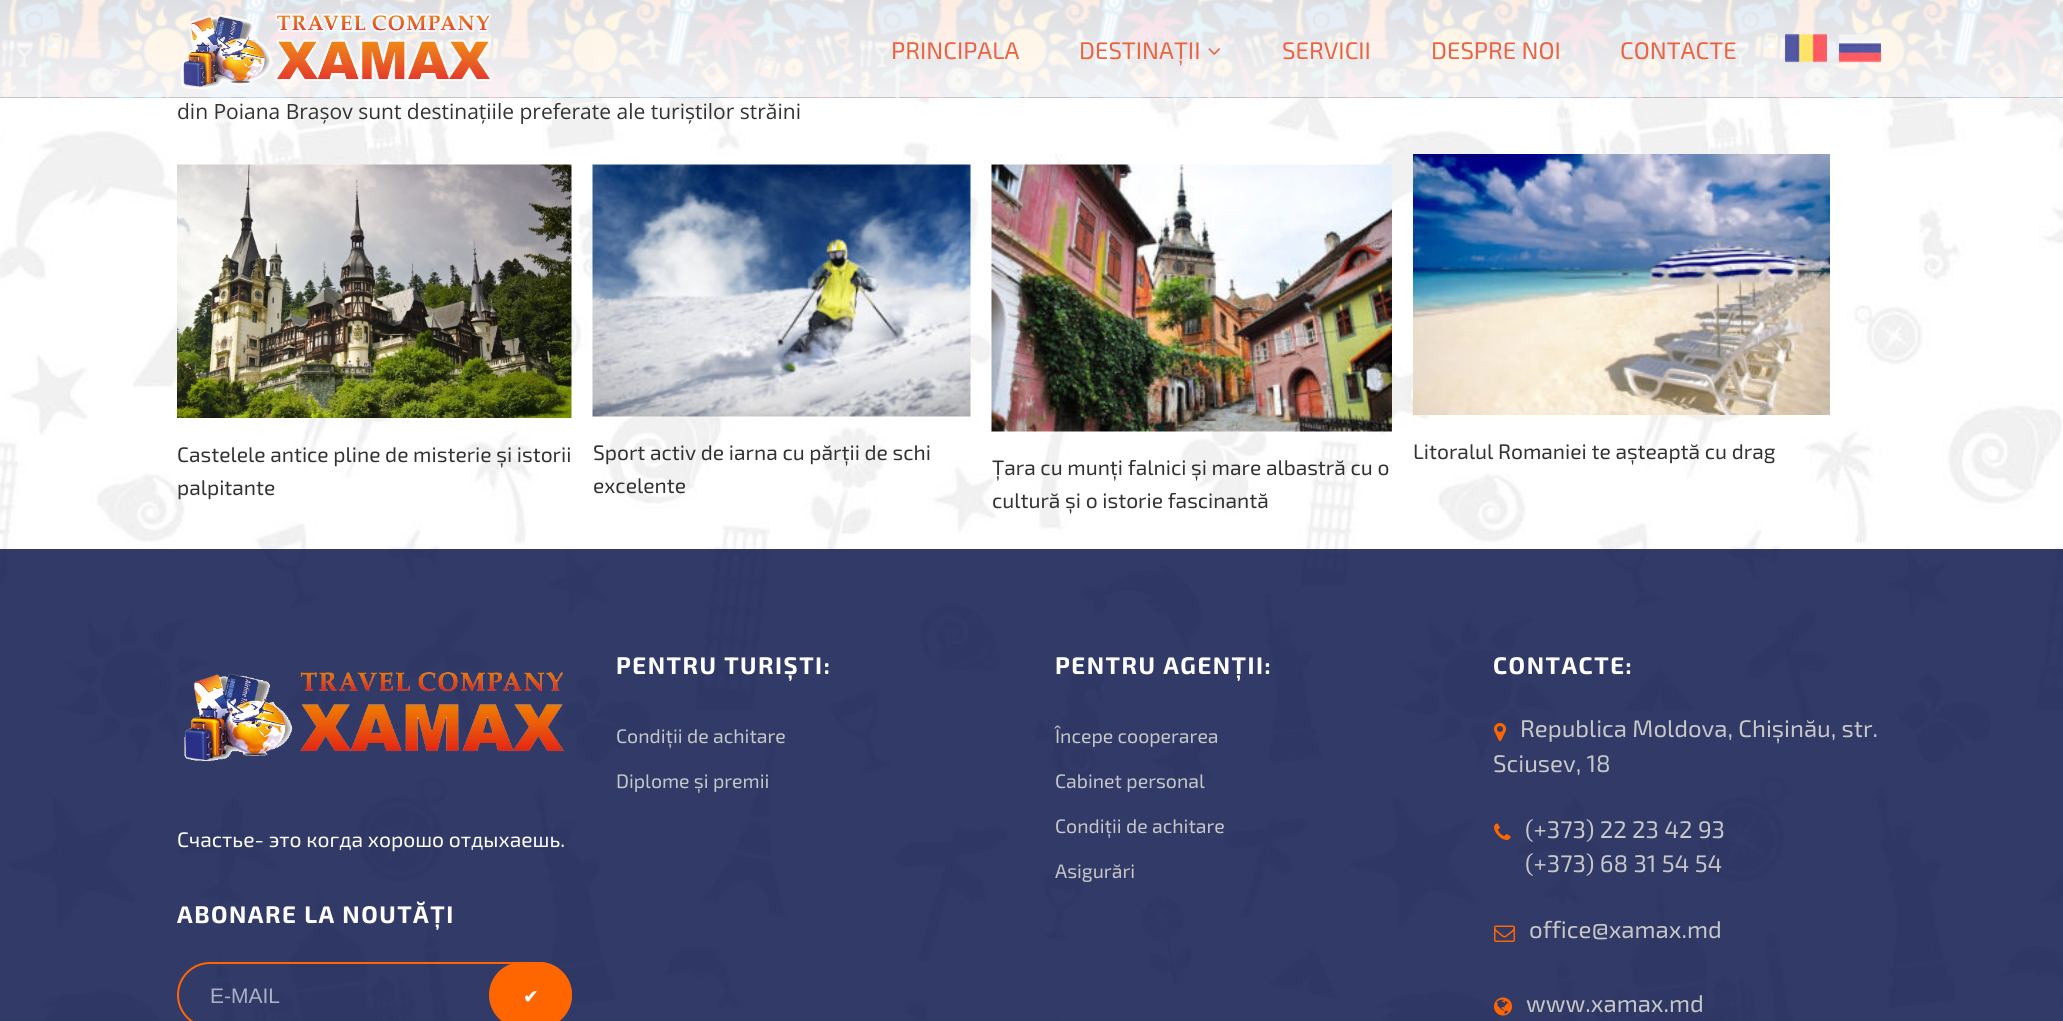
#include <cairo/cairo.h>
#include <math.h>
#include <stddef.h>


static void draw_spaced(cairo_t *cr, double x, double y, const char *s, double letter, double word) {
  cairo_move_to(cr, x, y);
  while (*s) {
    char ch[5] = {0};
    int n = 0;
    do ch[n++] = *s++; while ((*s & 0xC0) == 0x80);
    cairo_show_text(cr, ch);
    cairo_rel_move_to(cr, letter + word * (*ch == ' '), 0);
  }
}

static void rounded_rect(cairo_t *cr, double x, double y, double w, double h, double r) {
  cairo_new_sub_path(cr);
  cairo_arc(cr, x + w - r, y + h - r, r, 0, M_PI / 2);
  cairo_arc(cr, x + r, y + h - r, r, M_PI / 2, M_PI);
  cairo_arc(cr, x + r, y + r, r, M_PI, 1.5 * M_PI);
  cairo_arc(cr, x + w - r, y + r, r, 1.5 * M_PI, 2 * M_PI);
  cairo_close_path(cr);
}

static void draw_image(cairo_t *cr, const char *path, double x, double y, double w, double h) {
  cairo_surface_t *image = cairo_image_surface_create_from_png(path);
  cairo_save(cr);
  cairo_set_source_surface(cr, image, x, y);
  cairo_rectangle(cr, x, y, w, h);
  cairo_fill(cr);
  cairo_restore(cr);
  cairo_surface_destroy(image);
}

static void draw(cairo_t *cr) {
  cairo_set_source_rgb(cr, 1, 1, 1);
  cairo_paint(cr);
  draw_image(cr, "images/1.png", 0, 0, 2063, 1021);
  draw_image(cr, "images/2.png", 0, 0, 2063, 98);
  draw_image(cr, "images/3.png", 180, 13, 312, 77);
  draw_image(cr, "images/4.png", 1208, 48, 12, 7);
  draw_image(cr, "images/5.png", 1785, 33, 42, 30);
  draw_image(cr, "images/6.png", 1839, 34, 42, 29);
  draw_image(cr, "images/7.png", 177, 164, 395, 254);
  draw_image(cr, "images/8.png", 592, 164, 379, 253);
  draw_image(cr, "images/9.png", 991, 164, 401, 268);
  draw_image(cr, "images/10.png", 1413, 154, 417, 261);
  cairo_set_source_rgba(cr, 3 / 255.0, 13 / 255.0, 70 / 255.0, 0.81);
  cairo_rectangle(cr, 0, 549, 2063, 472);
  cairo_fill(cr);
  draw_image(cr, "images/11.png", 184, 672, 380, 90);
  rounded_rect(cr, 178, 963, 393, 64, 32);
  cairo_set_source_rgb(cr, 1, 101 / 255.0, 0);
  cairo_stroke(cr);
  cairo_set_source_rgb(cr, 1, 102 / 255.0, 0);
  rounded_rect(cr, 490.5, 963.5, 80, 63, 31.5);
  cairo_fill_preserve(cr);
  cairo_set_line_width(cr, 3);
  cairo_stroke(cr);
  draw_image(cr, "images/12.png", 1494, 723, 12, 18);
  draw_image(cr, "images/13.png", 1494, 823, 17, 17);
  draw_image(cr, "images/14.png", 1494, 925, 21, 17);
  draw_image(cr, "images/15.png", 1494, 997, 18, 19);
  cairo_select_font_face(cr, "Exo 2", CAIRO_FONT_SLANT_NORMAL, CAIRO_FONT_WEIGHT_NORMAL);
  cairo_set_font_size(cr, 24);
  cairo_set_source_rgb(cr, 235 / 255.0, 100 / 255.0, 66 / 255.0);
  cairo_move_to(cr, 891, 59);
  cairo_show_text(cr, "PRINCIPALA");
  cairo_move_to(cr, 1079, 59);
  cairo_show_text(cr, "DESTINAȚII");
  cairo_move_to(cr, 1282, 59);
  cairo_show_text(cr, "SERVICII");
  cairo_move_to(cr, 1431, 59);
  cairo_show_text(cr, "DESPRE NOI");
  cairo_move_to(cr, 1620, 59);
  cairo_show_text(cr, "CONTACTE");
  cairo_select_font_face(cr, "Open Sans", CAIRO_FONT_SLANT_NORMAL, CAIRO_FONT_WEIGHT_NORMAL);
  cairo_set_font_size(cr, 21);
  cairo_set_source_rgb(cr, 51 / 255.0, 51 / 255.0, 51 / 255.0);
  cairo_move_to(cr, 177, 119);
  cairo_show_text(cr, "din Poiana Brașov sunt destinațiile preferate ale turiștilor străini");
  cairo_select_font_face(cr, "Exo 2", CAIRO_FONT_SLANT_NORMAL, CAIRO_FONT_WEIGHT_NORMAL);
  cairo_move_to(cr, 177, 462);
  cairo_show_text(cr, "Castelele antice pline de misterie și istorii");
  cairo_move_to(cr, 177, 495);
  cairo_show_text(cr, "palpitante");
  cairo_move_to(cr, 593, 460);
  cairo_show_text(cr, "Sport activ de iarna cu părții de schi");
  cairo_move_to(cr, 593, 493);
  cairo_show_text(cr, "excelente");
  cairo_move_to(cr, 992, 475);
  cairo_show_text(cr, "Țara cu munți falnici și mare albastră cu o");
  cairo_move_to(cr, 992, 508);
  cairo_show_text(cr, "cultură și o istorie fascinantă");
  cairo_move_to(cr, 1413, 459);
  cairo_show_text(cr, "Litoralul Romaniei te așteaptă cu drag");
  cairo_set_source_rgb(cr, 1, 1, 1);
  cairo_move_to(cr, 177, 847);
  cairo_show_text(cr, "Счастье- это когда хорошо отдыхаешь.");
  cairo_select_font_face(cr, "Exo 2", CAIRO_FONT_SLANT_NORMAL, CAIRO_FONT_WEIGHT_BOLD);
  cairo_set_font_size(cr, 24);
  draw_spaced(cr, 177, 923, "ABONARE LA NOUTĂȚI", 1.5, 0);
  cairo_select_font_face(cr, "Liberation Sans", CAIRO_FONT_SLANT_NORMAL, CAIRO_FONT_WEIGHT_NORMAL);
  cairo_set_font_size(cr, 21);
  cairo_set_source_rgb(cr, 173 / 255.0, 176 / 255.0, 195 / 255.0);
  cairo_move_to(cr, 210, 1003);
  cairo_show_text(cr, "E-MAIL");
  cairo_select_font_face(cr, "DejaVu Sans", CAIRO_FONT_SLANT_NORMAL, CAIRO_FONT_WEIGHT_BOLD);
  cairo_set_font_size(cr, 18);
  cairo_set_source_rgb(cr, 1, 1, 1);
  cairo_move_to(cr, 523, 1003);
  cairo_show_text(cr, "✔");
  cairo_select_font_face(cr, "Exo 2", CAIRO_FONT_SLANT_NORMAL, CAIRO_FONT_WEIGHT_BOLD);
  cairo_set_font_size(cr, 24);
  draw_spaced(cr, 616, 674, "PENTRU TURIȘTI:", 1.5, 0);
  cairo_select_font_face(cr, "Exo 2", CAIRO_FONT_SLANT_NORMAL, CAIRO_FONT_WEIGHT_NORMAL);
  cairo_set_font_size(cr, 19.5);
  cairo_set_source_rgb(cr, 199 / 255.0, 199 / 255.0, 199 / 255.0);
  cairo_move_to(cr, 616, 743);
  cairo_show_text(cr, "Condiții de achitare");
  cairo_move_to(cr, 616, 788);
  cairo_show_text(cr, "Diplome și premii");
  cairo_select_font_face(cr, "Exo 2", CAIRO_FONT_SLANT_NORMAL, CAIRO_FONT_WEIGHT_BOLD);
  cairo_set_font_size(cr, 24);
  cairo_set_source_rgb(cr, 1, 1, 1);
  draw_spaced(cr, 1055, 674, "PENTRU AGENȚII:", 1.5, 0);
  cairo_select_font_face(cr, "Exo 2", CAIRO_FONT_SLANT_NORMAL, CAIRO_FONT_WEIGHT_NORMAL);
  cairo_set_font_size(cr, 19.5);
  cairo_set_source_rgb(cr, 199 / 255.0, 199 / 255.0, 199 / 255.0);
  cairo_move_to(cr, 1055, 743);
  cairo_show_text(cr, "Începe cooperarea");
  cairo_move_to(cr, 1055, 788);
  cairo_show_text(cr, "Cabinet personal");
  cairo_move_to(cr, 1055, 833);
  cairo_show_text(cr, "Condiții de achitare");
  cairo_move_to(cr, 1055, 878);
  cairo_show_text(cr, "Asigurări");
  cairo_select_font_face(cr, "Exo 2", CAIRO_FONT_SLANT_NORMAL, CAIRO_FONT_WEIGHT_BOLD);
  cairo_set_font_size(cr, 24);
  cairo_set_source_rgb(cr, 1, 1, 1);
  draw_spaced(cr, 1493, 674, "CONTACTE:", 1.5, 0);
  cairo_select_font_face(cr, "Exo 2", CAIRO_FONT_SLANT_NORMAL, CAIRO_FONT_WEIGHT_NORMAL);
  cairo_set_source_rgb(cr, 199 / 255.0, 199 / 255.0, 199 / 255.0);
  cairo_move_to(cr, 1520, 737);
  cairo_show_text(cr, "Republica Moldova, Chișinău, str.");
  cairo_move_to(cr, 1493, 772);
  cairo_show_text(cr, "Sciusev, 18");
  cairo_move_to(cr, 1525, 838);
  cairo_show_text(cr, "(+373) 22 23 42 93");
  cairo_move_to(cr, 1525, 872);
  cairo_show_text(cr, "(+373) 68 31 54 54");
  cairo_move_to(cr, 1529, 938);
  cairo_show_text(cr, "office@xamax.md");
  cairo_move_to(cr, 1526, 1012);
  cairo_show_text(cr, "www.xamax.md");
}

int main(void) {
  cairo_surface_t *surface = cairo_image_surface_create(CAIRO_FORMAT_RGB24, 2063, 1021);
  cairo_t *cr = cairo_create(surface);
  cairo_font_options_t *options = cairo_font_options_create();
  cairo_font_options_set_hint_metrics(options, CAIRO_HINT_METRICS_OFF);
  cairo_font_options_set_hint_style(options, CAIRO_HINT_STYLE_NONE);
  cairo_set_font_options(cr, options);
  cairo_set_miter_limit(cr, 4);
  draw(cr);
  cairo_surface_write_to_png(surface, "out.png");
  cairo_font_options_destroy(options);
  cairo_destroy(cr);
  cairo_surface_destroy(surface);
  return 0;
}
